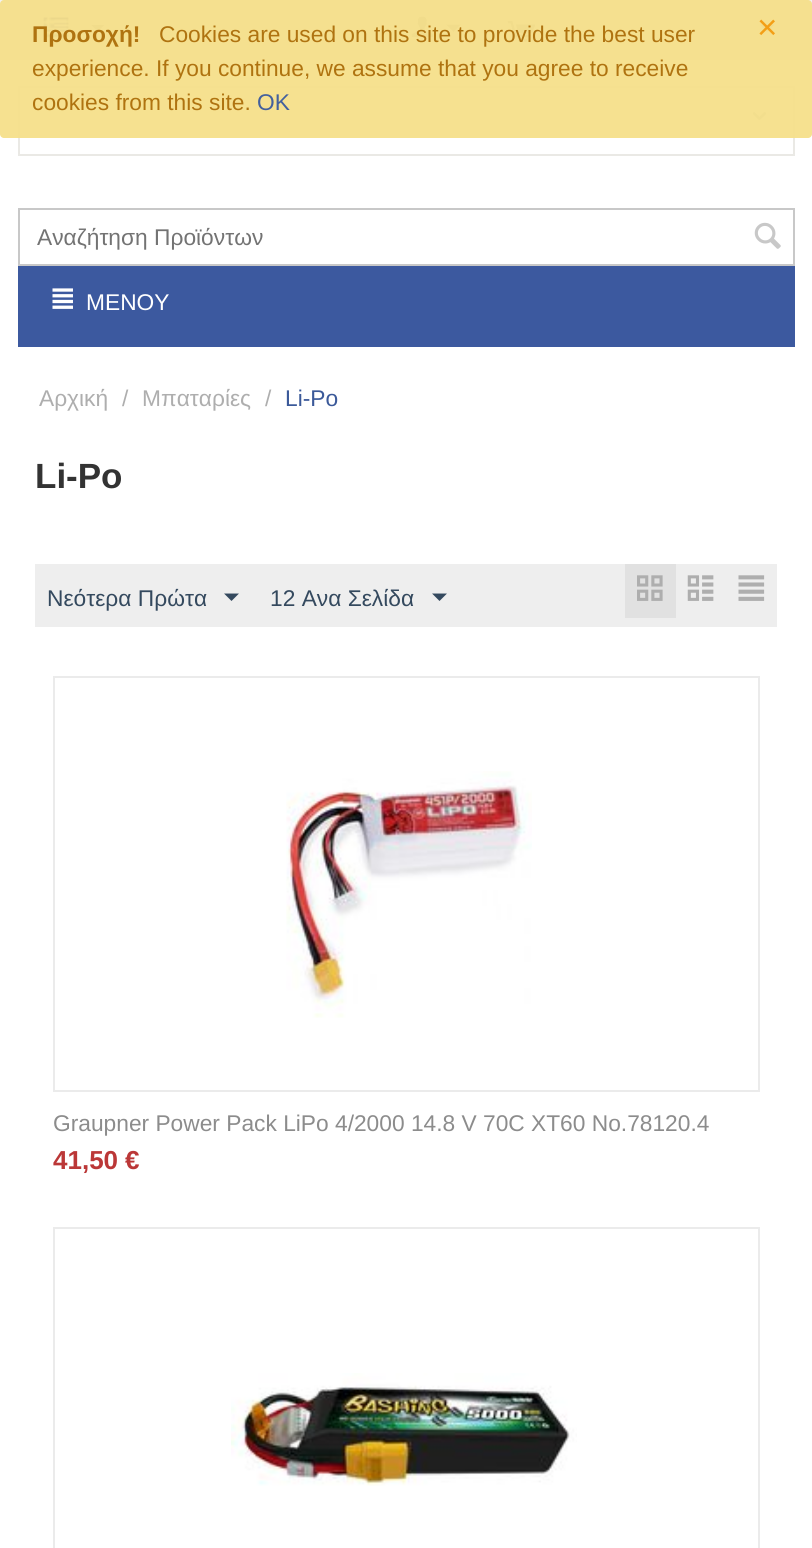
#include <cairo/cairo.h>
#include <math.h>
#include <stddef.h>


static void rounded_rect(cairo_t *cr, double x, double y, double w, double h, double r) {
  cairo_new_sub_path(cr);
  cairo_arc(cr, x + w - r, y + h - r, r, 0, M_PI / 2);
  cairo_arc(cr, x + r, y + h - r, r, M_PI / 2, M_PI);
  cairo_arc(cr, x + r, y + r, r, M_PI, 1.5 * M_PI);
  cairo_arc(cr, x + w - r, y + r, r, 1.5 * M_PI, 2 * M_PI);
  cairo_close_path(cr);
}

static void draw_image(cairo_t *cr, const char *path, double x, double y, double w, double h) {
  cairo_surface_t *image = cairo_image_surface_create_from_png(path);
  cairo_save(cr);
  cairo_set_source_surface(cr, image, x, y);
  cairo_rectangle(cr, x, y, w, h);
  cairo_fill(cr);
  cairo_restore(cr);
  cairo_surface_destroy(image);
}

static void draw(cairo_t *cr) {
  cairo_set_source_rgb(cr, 1, 1, 1);
  cairo_paint(cr);
  cairo_set_source_rgb(cr, 242 / 255.0, 242 / 255.0, 242 / 255.0);
  cairo_rectangle(cr, 0, 0, 812, 58);
  cairo_fill(cr);
  cairo_set_source_rgb(cr, 225 / 255.0, 225 / 255.0, 225 / 255.0);
  cairo_rectangle(cr, 0, 58, 812, 2);
  cairo_fill(cr);
  draw_image(cr, "images/1.png", 42, 17, 28, 23);
  cairo_set_source_rgb(cr, 136 / 255.0, 136 / 255.0, 136 / 255.0);
  cairo_new_path(cr);
  cairo_move_to(cr, 97.5, 31.5);
  cairo_line_to(cr, 91, 25);
  cairo_line_to(cr, 104.5, 25);
  cairo_close_path(cr);
  cairo_fill(cr);
  draw_image(cr, "images/2.png", 411, 16, 22, 22);
  cairo_new_path(cr);
  cairo_move_to(cr, 453.5, 32);
  cairo_line_to(cr, 446, 24.5);
  cairo_line_to(cr, 461, 24.5);
  cairo_close_path(cr);
  cairo_fill(cr);
  draw_image(cr, "images/3.png", 507, 21, 29, 21);
  cairo_new_path(cr);
  cairo_move_to(cr, 767, 32);
  cairo_line_to(cr, 759.5, 24.5);
  cairo_line_to(cr, 774.5, 24.5);
  cairo_close_path(cr);
  cairo_fill(cr);
  cairo_rectangle(cr, 19, 87, 775, 68);
  cairo_set_source_rgb(cr, 234 / 255.0, 233 / 255.0, 229 / 255.0);
  cairo_stroke(cr);
  draw_image(cr, "images/4.png", 752, 112, 14, 8);
  cairo_set_source_rgba(cr, 245 / 255.0, 224 / 255.0, 140 / 255.0, 0.96);
  rounded_rect(cr, 0, 0, 812, 138, 4);
  cairo_fill(cr);
  cairo_rectangle(cr, 19, 209, 775, 56);
  cairo_set_source_rgb(cr, 200 / 255.0, 200 / 255.0, 200 / 255.0);
  cairo_stroke(cr);
  draw_image(cr, "images/5.png", 754, 222, 27, 27);
  cairo_set_source_rgb(cr, 60 / 255.0, 89 / 255.0, 159 / 255.0);
  cairo_rectangle(cr, 18, 266, 777, 81);
  cairo_fill(cr);
  draw_image(cr, "images/6.png", 52, 288, 21, 21);
  cairo_set_source_rgb(cr, 238 / 255.0, 238 / 255.0, 238 / 255.0);
  cairo_rectangle(cr, 35, 564, 742, 63);
  cairo_fill(cr);
  cairo_set_source_rgb(cr, 52 / 255.0, 73 / 255.0, 94 / 255.0);
  cairo_new_path(cr);
  cairo_move_to(cr, 231.5, 601);
  cairo_line_to(cr, 224, 593.5);
  cairo_line_to(cr, 239, 593.5);
  cairo_close_path(cr);
  cairo_fill(cr);
  cairo_new_path(cr);
  cairo_move_to(cr, 439.5, 601);
  cairo_line_to(cr, 432, 593.5);
  cairo_line_to(cr, 447, 593.5);
  cairo_close_path(cr);
  cairo_fill(cr);
  cairo_set_source_rgb(cr, 225 / 255.0, 225 / 255.0, 225 / 255.0);
  cairo_rectangle(cr, 625, 564, 51, 54);
  cairo_fill(cr);
  draw_image(cr, "images/7.png", 637, 575, 26, 26);
  draw_image(cr, "images/8.png", 687, 575, 27, 26);
  draw_image(cr, "images/9.png", 738, 575, 27, 26);
  cairo_rectangle(cr, 54, 677, 705, 414);
  cairo_set_source_rgb(cr, 235 / 255.0, 235 / 255.0, 235 / 255.0);
  cairo_stroke(cr);
  draw_image(cr, "images/10.png", 286, 771, 246, 247);
  cairo_rectangle(cr, 54, 1228, 705, 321);
  cairo_stroke(cr);
  draw_image(cr, "images/11.png", 231, 1373, 346, 113);
  cairo_select_font_face(cr, "Liberation Sans", CAIRO_FONT_SLANT_NORMAL, CAIRO_FONT_WEIGHT_BOLD);
  cairo_set_font_size(cr, 22.75);
  cairo_set_source_rgb(cr, 175 / 255.0, 115 / 255.0, 16 / 255.0);
  cairo_move_to(cr, 32, 42);
  cairo_show_text(cr, "Προσοχή!");
  cairo_select_font_face(cr, "Liberation Sans", CAIRO_FONT_SLANT_NORMAL, CAIRO_FONT_WEIGHT_NORMAL);
  cairo_move_to(cr, 159, 42);
  cairo_show_text(cr, "Cookies are used on this site to provide the best user");
  cairo_set_font_size(cr, 35);
  cairo_set_source_rgb(cr, 243 / 255.0, 159 / 255.0, 23 / 255.0);
  cairo_move_to(cr, 757, 39);
  cairo_show_text(cr, "×");
  cairo_set_font_size(cr, 22.75);
  cairo_set_source_rgb(cr, 175 / 255.0, 115 / 255.0, 16 / 255.0);
  cairo_move_to(cr, 32, 76);
  cairo_show_text(cr, "experience. If you continue, we assume that you agree to receive");
  cairo_move_to(cr, 32, 110);
  cairo_show_text(cr, "cookies from this site.");
  cairo_set_source_rgb(cr, 67 / 255.0, 96 / 255.0, 157 / 255.0);
  cairo_move_to(cr, 257, 110);
  cairo_show_text(cr, "OK");
  cairo_set_source_rgb(cr, 115 / 255.0, 115 / 255.0, 115 / 255.0);
  cairo_move_to(cr, 37, 245);
  cairo_show_text(cr, "Αναζήτηση Προϊόντων");
  cairo_set_source_rgb(cr, 1, 1, 1);
  cairo_move_to(cr, 86, 310);
  cairo_show_text(cr, "ΜΕΝΟΥ");
  cairo_set_source_rgb(cr, 174 / 255.0, 174 / 255.0, 174 / 255.0);
  cairo_move_to(cr, 39, 406);
  cairo_show_text(cr, "Αρχική");
  cairo_move_to(cr, 122, 406);
  cairo_show_text(cr, "/");
  cairo_move_to(cr, 142, 406);
  cairo_show_text(cr, "Μπαταρίες");
  cairo_move_to(cr, 265, 406);
  cairo_show_text(cr, "/");
  cairo_set_source_rgb(cr, 59 / 255.0, 89 / 255.0, 153 / 255.0);
  cairo_move_to(cr, 285, 406);
  cairo_show_text(cr, "Li-Po");
  cairo_select_font_face(cr, "Liberation Sans", CAIRO_FONT_SLANT_NORMAL, CAIRO_FONT_WEIGHT_BOLD);
  cairo_set_font_size(cr, 35);
  cairo_set_source_rgb(cr, 51 / 255.0, 51 / 255.0, 51 / 255.0);
  cairo_move_to(cr, 35, 488);
  cairo_show_text(cr, "Li-Po");
  cairo_select_font_face(cr, "Liberation Sans", CAIRO_FONT_SLANT_NORMAL, CAIRO_FONT_WEIGHT_NORMAL);
  cairo_set_font_size(cr, 22.75);
  cairo_set_source_rgb(cr, 52 / 255.0, 73 / 255.0, 94 / 255.0);
  cairo_move_to(cr, 47, 606);
  cairo_show_text(cr, "Νεότερα Πρώτα");
  cairo_move_to(cr, 270, 606);
  cairo_show_text(cr, "12 Ανα Σελίδα");
  cairo_set_source_rgb(cr, 140 / 255.0, 140 / 255.0, 140 / 255.0);
  cairo_move_to(cr, 53, 1131);
  cairo_show_text(cr, "Graupner Power Pack LiPo 4/2000 14.8 V 70C XT60 No.78120.4");
  cairo_select_font_face(cr, "Liberation Sans", CAIRO_FONT_SLANT_NORMAL, CAIRO_FONT_WEIGHT_BOLD);
  cairo_set_font_size(cr, 26);
  cairo_set_source_rgb(cr, 187 / 255.0, 55 / 255.0, 55 / 255.0);
  cairo_move_to(cr, 53, 1169);
  cairo_show_text(cr, "41,50");
  cairo_move_to(cr, 125, 1169);
  cairo_show_text(cr, "€");
}

int main(void) {
  cairo_surface_t *surface = cairo_image_surface_create(CAIRO_FORMAT_RGB24, 812, 1548);
  cairo_t *cr = cairo_create(surface);
  cairo_font_options_t *options = cairo_font_options_create();
  cairo_font_options_set_hint_metrics(options, CAIRO_HINT_METRICS_OFF);
  cairo_font_options_set_hint_style(options, CAIRO_HINT_STYLE_NONE);
  cairo_set_font_options(cr, options);
  cairo_set_miter_limit(cr, 4);
  draw(cr);
  cairo_surface_write_to_png(surface, "out.png");
  cairo_font_options_destroy(options);
  cairo_destroy(cr);
  cairo_surface_destroy(surface);
  return 0;
}
